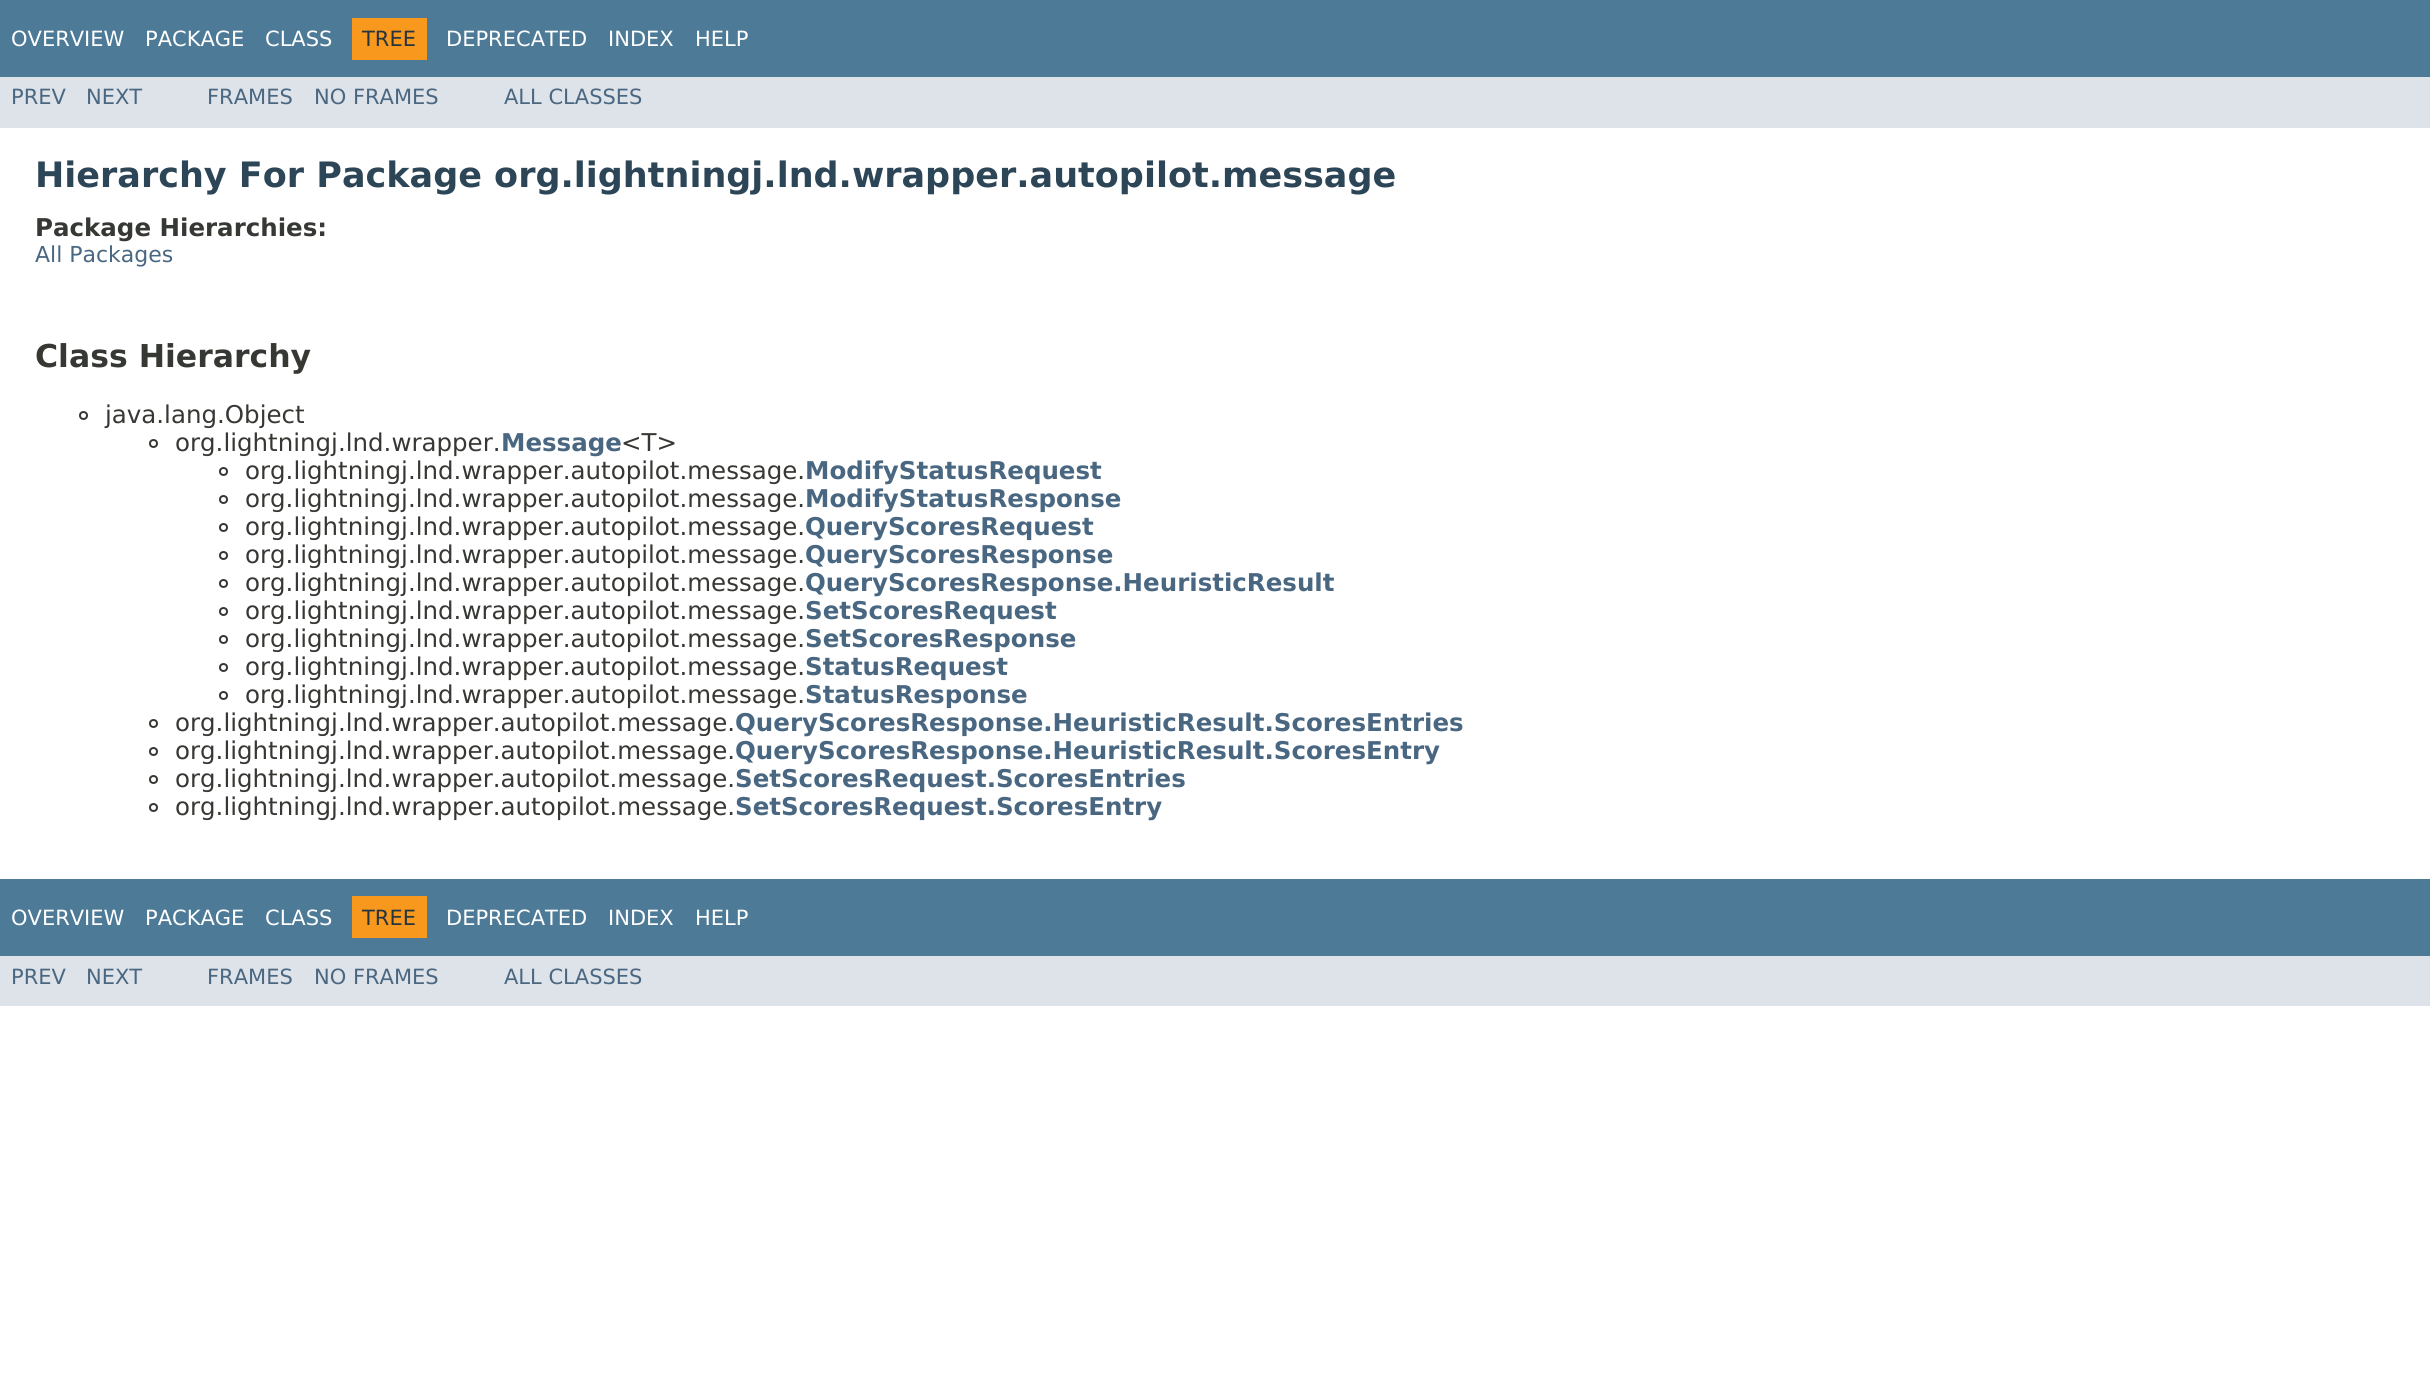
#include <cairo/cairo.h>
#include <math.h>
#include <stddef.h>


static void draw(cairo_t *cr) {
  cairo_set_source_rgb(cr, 1, 1, 1);
  cairo_paint(cr);
  cairo_set_source_rgb(cr, 77 / 255.0, 122 / 255.0, 151 / 255.0);
  cairo_rectangle(cr, 0, 0, 2430, 77);
  cairo_fill(cr);
  cairo_set_source_rgb(cr, 248 / 255.0, 152 / 255.0, 29 / 255.0);
  cairo_rectangle(cr, 352, 18, 75, 42);
  cairo_fill(cr);
  cairo_set_source_rgb(cr, 222 / 255.0, 227 / 255.0, 233 / 255.0);
  cairo_rectangle(cr, 0, 77, 2430, 51);
  cairo_fill(cr);
  cairo_arc(cr, 83.5, 415.5, 3.5, 0, 2 * M_PI);
  cairo_set_source_rgb(cr, 53 / 255.0, 56 / 255.0, 51 / 255.0);
  cairo_stroke(cr);
  cairo_arc(cr, 153.5, 443.5, 3.5, 0, 2 * M_PI);
  cairo_stroke(cr);
  cairo_arc(cr, 223.5, 471.5, 3.5, 0, 2 * M_PI);
  cairo_stroke(cr);
  cairo_arc(cr, 223.5, 499.5, 3.5, 0, 2 * M_PI);
  cairo_stroke(cr);
  cairo_arc(cr, 223.5, 527.5, 3.5, 0, 2 * M_PI);
  cairo_stroke(cr);
  cairo_arc(cr, 223.5, 555.5, 3.5, 0, 2 * M_PI);
  cairo_stroke(cr);
  cairo_arc(cr, 223.5, 583.5, 3.5, 0, 2 * M_PI);
  cairo_stroke(cr);
  cairo_arc(cr, 223.5, 611.5, 3.5, 0, 2 * M_PI);
  cairo_stroke(cr);
  cairo_arc(cr, 223.5, 639.5, 3.5, 0, 2 * M_PI);
  cairo_stroke(cr);
  cairo_arc(cr, 223.5, 667.5, 3.5, 0, 2 * M_PI);
  cairo_stroke(cr);
  cairo_arc(cr, 223.5, 695.5, 3.5, 0, 2 * M_PI);
  cairo_stroke(cr);
  cairo_arc(cr, 153.5, 723.5, 3.5, 0, 2 * M_PI);
  cairo_stroke(cr);
  cairo_arc(cr, 153.5, 751.5, 3.5, 0, 2 * M_PI);
  cairo_stroke(cr);
  cairo_arc(cr, 153.5, 779.5, 3.5, 0, 2 * M_PI);
  cairo_stroke(cr);
  cairo_arc(cr, 153.5, 807.5, 3.5, 0, 2 * M_PI);
  cairo_stroke(cr);
  cairo_set_source_rgb(cr, 77 / 255.0, 122 / 255.0, 151 / 255.0);
  cairo_rectangle(cr, 0, 879, 2430, 77);
  cairo_fill(cr);
  cairo_set_source_rgb(cr, 248 / 255.0, 152 / 255.0, 29 / 255.0);
  cairo_rectangle(cr, 352, 896, 75, 42);
  cairo_fill(cr);
  cairo_set_source_rgb(cr, 222 / 255.0, 227 / 255.0, 233 / 255.0);
  cairo_rectangle(cr, 0, 956, 2430, 50);
  cairo_fill(cr);
  cairo_select_font_face(cr, "DejaVu Sans", CAIRO_FONT_SLANT_NORMAL, CAIRO_FONT_WEIGHT_NORMAL);
  cairo_set_font_size(cr, 21);
  cairo_set_source_rgb(cr, 1, 1, 1);
  cairo_move_to(cr, 11, 46);
  cairo_show_text(cr, "OVERVIEW");
  cairo_move_to(cr, 145, 46);
  cairo_show_text(cr, "PACKAGE");
  cairo_move_to(cr, 265, 46);
  cairo_show_text(cr, "CLASS");
  cairo_set_source_rgb(cr, 37 / 255.0, 52 / 255.0, 65 / 255.0);
  cairo_move_to(cr, 362, 46);
  cairo_show_text(cr, "TREE");
  cairo_set_source_rgb(cr, 1, 1, 1);
  cairo_move_to(cr, 446, 46);
  cairo_show_text(cr, "DEPRECATED");
  cairo_move_to(cr, 608, 46);
  cairo_show_text(cr, "INDEX");
  cairo_move_to(cr, 695, 46);
  cairo_show_text(cr, "HELP");
  cairo_set_source_rgb(cr, 74 / 255.0, 103 / 255.0, 130 / 255.0);
  cairo_move_to(cr, 11, 104);
  cairo_show_text(cr, "PREV");
  cairo_move_to(cr, 86, 104);
  cairo_show_text(cr, "NEXT");
  cairo_move_to(cr, 207, 104);
  cairo_show_text(cr, "FRAMES");
  cairo_move_to(cr, 314, 104);
  cairo_show_text(cr, "NO FRAMES");
  cairo_move_to(cr, 504, 104);
  cairo_show_text(cr, "ALL CLASSES");
  cairo_select_font_face(cr, "DejaVu Sans", CAIRO_FONT_SLANT_NORMAL, CAIRO_FONT_WEIGHT_BOLD);
  cairo_set_font_size(cr, 35);
  cairo_set_source_rgb(cr, 44 / 255.0, 69 / 255.0, 87 / 255.0);
  cairo_move_to(cr, 35, 187);
  cairo_show_text(cr, "Hierarchy For Package org.lightningj.lnd.wrapper.autopilot.message");
  cairo_set_font_size(cr, 24.5);
  cairo_set_source_rgb(cr, 53 / 255.0, 56 / 255.0, 51 / 255.0);
  cairo_move_to(cr, 35, 236);
  cairo_show_text(cr, "Package Hierarchies:");
  cairo_select_font_face(cr, "DejaVu Sans", CAIRO_FONT_SLANT_NORMAL, CAIRO_FONT_WEIGHT_NORMAL);
  cairo_set_font_size(cr, 22);
  cairo_set_source_rgb(cr, 74 / 255.0, 103 / 255.0, 130 / 255.0);
  cairo_move_to(cr, 35, 262);
  cairo_show_text(cr, "All Packages");
  cairo_select_font_face(cr, "DejaVu Sans", CAIRO_FONT_SLANT_NORMAL, CAIRO_FONT_WEIGHT_BOLD);
  cairo_set_font_size(cr, 31.5);
  cairo_set_source_rgb(cr, 53 / 255.0, 56 / 255.0, 51 / 255.0);
  cairo_move_to(cr, 35, 367);
  cairo_show_text(cr, "Class Hierarchy");
  cairo_select_font_face(cr, "DejaVu Sans", CAIRO_FONT_SLANT_NORMAL, CAIRO_FONT_WEIGHT_NORMAL);
  cairo_set_font_size(cr, 24.5);
  cairo_move_to(cr, 105, 423);
  cairo_show_text(cr, "java.lang.Object");
  cairo_move_to(cr, 175, 451);
  cairo_show_text(cr, "org.lightningj.lnd.wrapper.");
  cairo_select_font_face(cr, "DejaVu Sans", CAIRO_FONT_SLANT_NORMAL, CAIRO_FONT_WEIGHT_BOLD);
  cairo_set_source_rgb(cr, 74 / 255.0, 103 / 255.0, 130 / 255.0);
  cairo_move_to(cr, 501, 451);
  cairo_show_text(cr, "Message");
  cairo_select_font_face(cr, "DejaVu Sans", CAIRO_FONT_SLANT_NORMAL, CAIRO_FONT_WEIGHT_NORMAL);
  cairo_set_source_rgb(cr, 53 / 255.0, 56 / 255.0, 51 / 255.0);
  cairo_move_to(cr, 621, 451);
  cairo_show_text(cr, "<T>");
  cairo_move_to(cr, 245, 479);
  cairo_show_text(cr, "org.lightningj.lnd.wrapper.autopilot.message.");
  cairo_select_font_face(cr, "DejaVu Sans", CAIRO_FONT_SLANT_NORMAL, CAIRO_FONT_WEIGHT_BOLD);
  cairo_set_source_rgb(cr, 74 / 255.0, 103 / 255.0, 130 / 255.0);
  cairo_move_to(cr, 805, 479);
  cairo_show_text(cr, "ModifyStatusRequest");
  cairo_select_font_face(cr, "DejaVu Sans", CAIRO_FONT_SLANT_NORMAL, CAIRO_FONT_WEIGHT_NORMAL);
  cairo_set_source_rgb(cr, 53 / 255.0, 56 / 255.0, 51 / 255.0);
  cairo_move_to(cr, 245, 507);
  cairo_show_text(cr, "org.lightningj.lnd.wrapper.autopilot.message.");
  cairo_select_font_face(cr, "DejaVu Sans", CAIRO_FONT_SLANT_NORMAL, CAIRO_FONT_WEIGHT_BOLD);
  cairo_set_source_rgb(cr, 74 / 255.0, 103 / 255.0, 130 / 255.0);
  cairo_move_to(cr, 805, 507);
  cairo_show_text(cr, "ModifyStatusResponse");
  cairo_select_font_face(cr, "DejaVu Sans", CAIRO_FONT_SLANT_NORMAL, CAIRO_FONT_WEIGHT_NORMAL);
  cairo_set_source_rgb(cr, 53 / 255.0, 56 / 255.0, 51 / 255.0);
  cairo_move_to(cr, 245, 535);
  cairo_show_text(cr, "org.lightningj.lnd.wrapper.autopilot.message.");
  cairo_select_font_face(cr, "DejaVu Sans", CAIRO_FONT_SLANT_NORMAL, CAIRO_FONT_WEIGHT_BOLD);
  cairo_set_source_rgb(cr, 74 / 255.0, 103 / 255.0, 130 / 255.0);
  cairo_move_to(cr, 805, 535);
  cairo_show_text(cr, "QueryScoresRequest");
  cairo_select_font_face(cr, "DejaVu Sans", CAIRO_FONT_SLANT_NORMAL, CAIRO_FONT_WEIGHT_NORMAL);
  cairo_set_source_rgb(cr, 53 / 255.0, 56 / 255.0, 51 / 255.0);
  cairo_move_to(cr, 245, 563);
  cairo_show_text(cr, "org.lightningj.lnd.wrapper.autopilot.message.");
  cairo_select_font_face(cr, "DejaVu Sans", CAIRO_FONT_SLANT_NORMAL, CAIRO_FONT_WEIGHT_BOLD);
  cairo_set_source_rgb(cr, 74 / 255.0, 103 / 255.0, 130 / 255.0);
  cairo_move_to(cr, 805, 563);
  cairo_show_text(cr, "QueryScoresResponse");
  cairo_select_font_face(cr, "DejaVu Sans", CAIRO_FONT_SLANT_NORMAL, CAIRO_FONT_WEIGHT_NORMAL);
  cairo_set_source_rgb(cr, 53 / 255.0, 56 / 255.0, 51 / 255.0);
  cairo_move_to(cr, 245, 591);
  cairo_show_text(cr, "org.lightningj.lnd.wrapper.autopilot.message.");
  cairo_select_font_face(cr, "DejaVu Sans", CAIRO_FONT_SLANT_NORMAL, CAIRO_FONT_WEIGHT_BOLD);
  cairo_set_source_rgb(cr, 74 / 255.0, 103 / 255.0, 130 / 255.0);
  cairo_move_to(cr, 805, 591);
  cairo_show_text(cr, "QueryScoresResponse.HeuristicResult");
  cairo_select_font_face(cr, "DejaVu Sans", CAIRO_FONT_SLANT_NORMAL, CAIRO_FONT_WEIGHT_NORMAL);
  cairo_set_source_rgb(cr, 53 / 255.0, 56 / 255.0, 51 / 255.0);
  cairo_move_to(cr, 245, 619);
  cairo_show_text(cr, "org.lightningj.lnd.wrapper.autopilot.message.");
  cairo_select_font_face(cr, "DejaVu Sans", CAIRO_FONT_SLANT_NORMAL, CAIRO_FONT_WEIGHT_BOLD);
  cairo_set_source_rgb(cr, 74 / 255.0, 103 / 255.0, 130 / 255.0);
  cairo_move_to(cr, 805, 619);
  cairo_show_text(cr, "SetScoresRequest");
  cairo_select_font_face(cr, "DejaVu Sans", CAIRO_FONT_SLANT_NORMAL, CAIRO_FONT_WEIGHT_NORMAL);
  cairo_set_source_rgb(cr, 53 / 255.0, 56 / 255.0, 51 / 255.0);
  cairo_move_to(cr, 245, 647);
  cairo_show_text(cr, "org.lightningj.lnd.wrapper.autopilot.message.");
  cairo_select_font_face(cr, "DejaVu Sans", CAIRO_FONT_SLANT_NORMAL, CAIRO_FONT_WEIGHT_BOLD);
  cairo_set_source_rgb(cr, 74 / 255.0, 103 / 255.0, 130 / 255.0);
  cairo_move_to(cr, 805, 647);
  cairo_show_text(cr, "SetScoresResponse");
  cairo_select_font_face(cr, "DejaVu Sans", CAIRO_FONT_SLANT_NORMAL, CAIRO_FONT_WEIGHT_NORMAL);
  cairo_set_source_rgb(cr, 53 / 255.0, 56 / 255.0, 51 / 255.0);
  cairo_move_to(cr, 245, 675);
  cairo_show_text(cr, "org.lightningj.lnd.wrapper.autopilot.message.");
  cairo_select_font_face(cr, "DejaVu Sans", CAIRO_FONT_SLANT_NORMAL, CAIRO_FONT_WEIGHT_BOLD);
  cairo_set_source_rgb(cr, 74 / 255.0, 103 / 255.0, 130 / 255.0);
  cairo_move_to(cr, 805, 675);
  cairo_show_text(cr, "StatusRequest");
  cairo_select_font_face(cr, "DejaVu Sans", CAIRO_FONT_SLANT_NORMAL, CAIRO_FONT_WEIGHT_NORMAL);
  cairo_set_source_rgb(cr, 53 / 255.0, 56 / 255.0, 51 / 255.0);
  cairo_move_to(cr, 245, 703);
  cairo_show_text(cr, "org.lightningj.lnd.wrapper.autopilot.message.");
  cairo_select_font_face(cr, "DejaVu Sans", CAIRO_FONT_SLANT_NORMAL, CAIRO_FONT_WEIGHT_BOLD);
  cairo_set_source_rgb(cr, 74 / 255.0, 103 / 255.0, 130 / 255.0);
  cairo_move_to(cr, 805, 703);
  cairo_show_text(cr, "StatusResponse");
  cairo_select_font_face(cr, "DejaVu Sans", CAIRO_FONT_SLANT_NORMAL, CAIRO_FONT_WEIGHT_NORMAL);
  cairo_set_source_rgb(cr, 53 / 255.0, 56 / 255.0, 51 / 255.0);
  cairo_move_to(cr, 175, 731);
  cairo_show_text(cr, "org.lightningj.lnd.wrapper.autopilot.message.");
  cairo_select_font_face(cr, "DejaVu Sans", CAIRO_FONT_SLANT_NORMAL, CAIRO_FONT_WEIGHT_BOLD);
  cairo_set_source_rgb(cr, 74 / 255.0, 103 / 255.0, 130 / 255.0);
  cairo_move_to(cr, 735, 731);
  cairo_show_text(cr, "QueryScoresResponse.HeuristicResult.ScoresEntries");
  cairo_select_font_face(cr, "DejaVu Sans", CAIRO_FONT_SLANT_NORMAL, CAIRO_FONT_WEIGHT_NORMAL);
  cairo_set_source_rgb(cr, 53 / 255.0, 56 / 255.0, 51 / 255.0);
  cairo_move_to(cr, 175, 759);
  cairo_show_text(cr, "org.lightningj.lnd.wrapper.autopilot.message.");
  cairo_select_font_face(cr, "DejaVu Sans", CAIRO_FONT_SLANT_NORMAL, CAIRO_FONT_WEIGHT_BOLD);
  cairo_set_source_rgb(cr, 74 / 255.0, 103 / 255.0, 130 / 255.0);
  cairo_move_to(cr, 735, 759);
  cairo_show_text(cr, "QueryScoresResponse.HeuristicResult.ScoresEntry");
  cairo_select_font_face(cr, "DejaVu Sans", CAIRO_FONT_SLANT_NORMAL, CAIRO_FONT_WEIGHT_NORMAL);
  cairo_set_source_rgb(cr, 53 / 255.0, 56 / 255.0, 51 / 255.0);
  cairo_move_to(cr, 175, 787);
  cairo_show_text(cr, "org.lightningj.lnd.wrapper.autopilot.message.");
  cairo_select_font_face(cr, "DejaVu Sans", CAIRO_FONT_SLANT_NORMAL, CAIRO_FONT_WEIGHT_BOLD);
  cairo_set_source_rgb(cr, 74 / 255.0, 103 / 255.0, 130 / 255.0);
  cairo_move_to(cr, 735, 787);
  cairo_show_text(cr, "SetScoresRequest.ScoresEntries");
  cairo_select_font_face(cr, "DejaVu Sans", CAIRO_FONT_SLANT_NORMAL, CAIRO_FONT_WEIGHT_NORMAL);
  cairo_set_source_rgb(cr, 53 / 255.0, 56 / 255.0, 51 / 255.0);
  cairo_move_to(cr, 175, 815);
  cairo_show_text(cr, "org.lightningj.lnd.wrapper.autopilot.message.");
  cairo_select_font_face(cr, "DejaVu Sans", CAIRO_FONT_SLANT_NORMAL, CAIRO_FONT_WEIGHT_BOLD);
  cairo_set_source_rgb(cr, 74 / 255.0, 103 / 255.0, 130 / 255.0);
  cairo_move_to(cr, 735, 815);
  cairo_show_text(cr, "SetScoresRequest.ScoresEntry");
  cairo_select_font_face(cr, "DejaVu Sans", CAIRO_FONT_SLANT_NORMAL, CAIRO_FONT_WEIGHT_NORMAL);
  cairo_set_font_size(cr, 21);
  cairo_set_source_rgb(cr, 1, 1, 1);
  cairo_move_to(cr, 11, 925);
  cairo_show_text(cr, "OVERVIEW");
  cairo_move_to(cr, 145, 925);
  cairo_show_text(cr, "PACKAGE");
  cairo_move_to(cr, 265, 925);
  cairo_show_text(cr, "CLASS");
  cairo_set_source_rgb(cr, 37 / 255.0, 52 / 255.0, 65 / 255.0);
  cairo_move_to(cr, 362, 925);
  cairo_show_text(cr, "TREE");
  cairo_set_source_rgb(cr, 1, 1, 1);
  cairo_move_to(cr, 446, 925);
  cairo_show_text(cr, "DEPRECATED");
  cairo_move_to(cr, 608, 925);
  cairo_show_text(cr, "INDEX");
  cairo_move_to(cr, 695, 925);
  cairo_show_text(cr, "HELP");
  cairo_set_source_rgb(cr, 74 / 255.0, 103 / 255.0, 130 / 255.0);
  cairo_move_to(cr, 11, 984);
  cairo_show_text(cr, "PREV");
  cairo_move_to(cr, 86, 984);
  cairo_show_text(cr, "NEXT");
  cairo_move_to(cr, 207, 984);
  cairo_show_text(cr, "FRAMES");
  cairo_move_to(cr, 314, 984);
  cairo_show_text(cr, "NO FRAMES");
  cairo_move_to(cr, 504, 984);
  cairo_show_text(cr, "ALL CLASSES");
}

int main(void) {
  cairo_surface_t *surface = cairo_image_surface_create(CAIRO_FORMAT_RGB24, 2430, 1380);
  cairo_t *cr = cairo_create(surface);
  cairo_font_options_t *options = cairo_font_options_create();
  cairo_font_options_set_hint_metrics(options, CAIRO_HINT_METRICS_OFF);
  cairo_font_options_set_hint_style(options, CAIRO_HINT_STYLE_NONE);
  cairo_set_font_options(cr, options);
  cairo_set_miter_limit(cr, 4);
  draw(cr);
  cairo_surface_write_to_png(surface, "out.png");
  cairo_font_options_destroy(options);
  cairo_destroy(cr);
  cairo_surface_destroy(surface);
  return 0;
}
